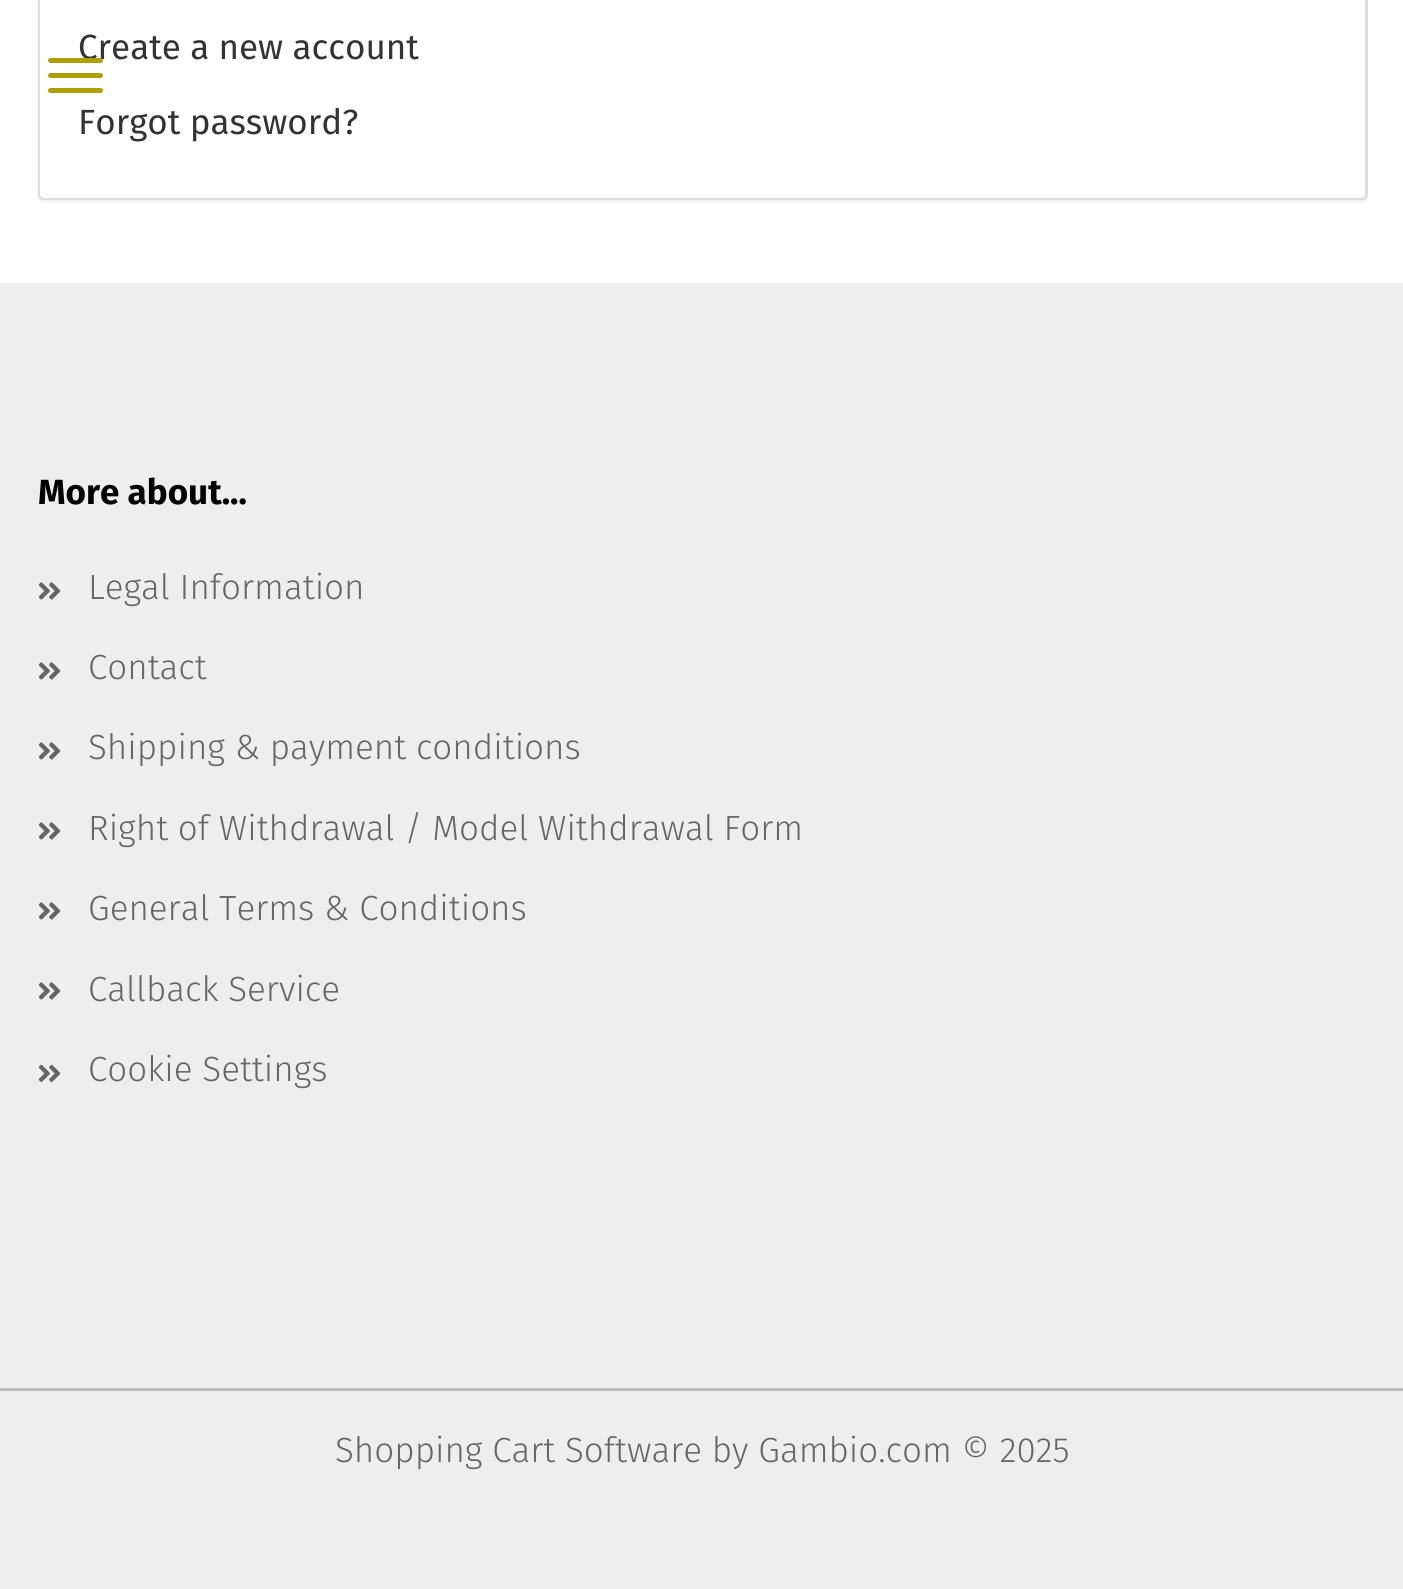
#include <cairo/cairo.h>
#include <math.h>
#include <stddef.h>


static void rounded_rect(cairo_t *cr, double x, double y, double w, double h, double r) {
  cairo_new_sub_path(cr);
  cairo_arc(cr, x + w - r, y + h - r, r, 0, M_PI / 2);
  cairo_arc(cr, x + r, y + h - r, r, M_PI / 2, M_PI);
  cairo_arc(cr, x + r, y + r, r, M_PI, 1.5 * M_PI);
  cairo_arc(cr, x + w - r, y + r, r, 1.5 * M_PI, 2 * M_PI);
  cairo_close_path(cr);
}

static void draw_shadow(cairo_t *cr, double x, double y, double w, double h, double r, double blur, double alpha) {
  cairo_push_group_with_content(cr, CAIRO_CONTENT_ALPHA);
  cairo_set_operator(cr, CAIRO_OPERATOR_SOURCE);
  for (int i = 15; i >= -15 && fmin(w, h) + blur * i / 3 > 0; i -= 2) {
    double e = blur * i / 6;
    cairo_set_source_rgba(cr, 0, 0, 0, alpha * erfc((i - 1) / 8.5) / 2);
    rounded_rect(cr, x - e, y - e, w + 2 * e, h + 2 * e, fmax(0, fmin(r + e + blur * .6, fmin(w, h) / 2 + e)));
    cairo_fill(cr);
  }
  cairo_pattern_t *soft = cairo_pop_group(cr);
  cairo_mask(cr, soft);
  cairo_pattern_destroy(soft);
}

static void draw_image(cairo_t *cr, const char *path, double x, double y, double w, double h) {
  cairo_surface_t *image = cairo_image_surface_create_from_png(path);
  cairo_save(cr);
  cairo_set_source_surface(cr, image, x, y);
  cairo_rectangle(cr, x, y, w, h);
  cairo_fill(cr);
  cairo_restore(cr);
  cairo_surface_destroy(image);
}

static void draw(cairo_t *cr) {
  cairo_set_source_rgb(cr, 1, 1, 1);
  cairo_paint(cr);
  cairo_set_source_rgb(cr, 0, 0, 0);
  draw_shadow(cr, 38, -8, 1330, 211, 5, 1, 0.05);
  cairo_set_source_rgb(cr, 1, 1, 1);
  rounded_rect(cr, 39.5, -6.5, 1327, 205, 3.5);
  cairo_fill_preserve(cr);
  cairo_set_source_rgb(cr, 221 / 255.0, 221 / 255.0, 221 / 255.0);
  cairo_set_line_width(cr, 3);
  cairo_stroke(cr);
  cairo_set_source_rgb(cr, 1, 1, 1);
  cairo_new_path(cr);
  cairo_move_to(cr, 40, -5);
  cairo_line_to(cr, 1365, -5);
  cairo_line_to(cr, 1365, 193);
  cairo_curve_to(cr, 1365, 196, 1363, 198, 1360, 198);
  cairo_line_to(cr, 45, 198);
  cairo_curve_to(cr, 42, 198, 40, 196, 40, 193);
  cairo_close_path(cr);
  cairo_fill(cr);
  cairo_set_source_rgb(cr, 175 / 255.0, 159 / 255.0, 4 / 255.0);
  rounded_rect(cr, 48, 73, 55, 5, 2.5);
  cairo_fill(cr);
  rounded_rect(cr, 48, 88, 55, 5, 2.5);
  cairo_fill(cr);
  cairo_set_source_rgb(cr, 238 / 255.0, 238 / 255.0, 238 / 255.0);
  cairo_rectangle(cr, 0, 283, 1403, 1306);
  cairo_fill(cr);
  cairo_set_source_rgb(cr, 187 / 255.0, 187 / 255.0, 187 / 255.0);
  cairo_rectangle(cr, 0, 1388, 1403, 3);
  cairo_fill(cr);
  draw_image(cr, "images/1.png", 38, 582, 23, 18);
  draw_image(cr, "images/1.png", 38, 662, 23, 18);
  draw_image(cr, "images/1.png", 38, 742, 23, 18);
  draw_image(cr, "images/1.png", 38, 822, 23, 18);
  draw_image(cr, "images/1.png", 38, 902, 23, 18);
  draw_image(cr, "images/1.png", 38, 982, 23, 18);
  draw_image(cr, "images/2.png", 38, 1064, 23, 18);
  cairo_select_font_face(cr, "Fira Sans", CAIRO_FONT_SLANT_NORMAL, CAIRO_FONT_WEIGHT_NORMAL);
  cairo_set_font_size(cr, 35);
  cairo_set_source_rgb(cr, 51 / 255.0, 51 / 255.0, 51 / 255.0);
  cairo_move_to(cr, 78, 59);
  cairo_show_text(cr, "Create a new account");
  cairo_set_source_rgb(cr, 175 / 255.0, 159 / 255.0, 4 / 255.0);
  rounded_rect(cr, 48, 58, 55, 5, 2.5);
  cairo_fill(cr);
  cairo_set_source_rgb(cr, 51 / 255.0, 51 / 255.0, 51 / 255.0);
  cairo_move_to(cr, 78, 134);
  cairo_show_text(cr, "Forgot password?");
  cairo_select_font_face(cr, "Fira Sans", CAIRO_FONT_SLANT_NORMAL, CAIRO_FONT_WEIGHT_BOLD);
  cairo_set_source_rgb(cr, 0, 0, 0);
  cairo_move_to(cr, 38, 504);
  cairo_show_text(cr, "More about...");
  cairo_select_font_face(cr, "Fira Sans Light", CAIRO_FONT_SLANT_NORMAL, CAIRO_FONT_WEIGHT_NORMAL);
  cairo_set_source_rgb(cr, 102 / 255.0, 102 / 255.0, 102 / 255.0);
  cairo_move_to(cr, 88, 599);
  cairo_show_text(cr, "Legal Information");
  cairo_move_to(cr, 88, 679);
  cairo_show_text(cr, "Contact");
  cairo_move_to(cr, 88, 759);
  cairo_show_text(cr, "Shipping & payment conditions");
  cairo_move_to(cr, 88, 840);
  cairo_show_text(cr, "Right of Withdrawal / Model Withdrawal Form");
  cairo_move_to(cr, 88, 920);
  cairo_show_text(cr, "General Terms & Conditions");
  cairo_move_to(cr, 88, 1001);
  cairo_show_text(cr, "Callback Service");
  cairo_move_to(cr, 88, 1081);
  cairo_show_text(cr, "Cookie Settings");
  cairo_move_to(cr, 335, 1462);
  cairo_show_text(cr, "Shopping Cart Software by Gambio.com © 2025");
}

int main(void) {
  cairo_surface_t *surface = cairo_image_surface_create(CAIRO_FORMAT_RGB24, 1403, 1589);
  cairo_t *cr = cairo_create(surface);
  cairo_font_options_t *options = cairo_font_options_create();
  cairo_font_options_set_hint_metrics(options, CAIRO_HINT_METRICS_OFF);
  cairo_font_options_set_hint_style(options, CAIRO_HINT_STYLE_NONE);
  cairo_set_font_options(cr, options);
  cairo_set_miter_limit(cr, 4);
  draw(cr);
  cairo_surface_write_to_png(surface, "out.png");
  cairo_font_options_destroy(options);
  cairo_destroy(cr);
  cairo_surface_destroy(surface);
  return 0;
}
